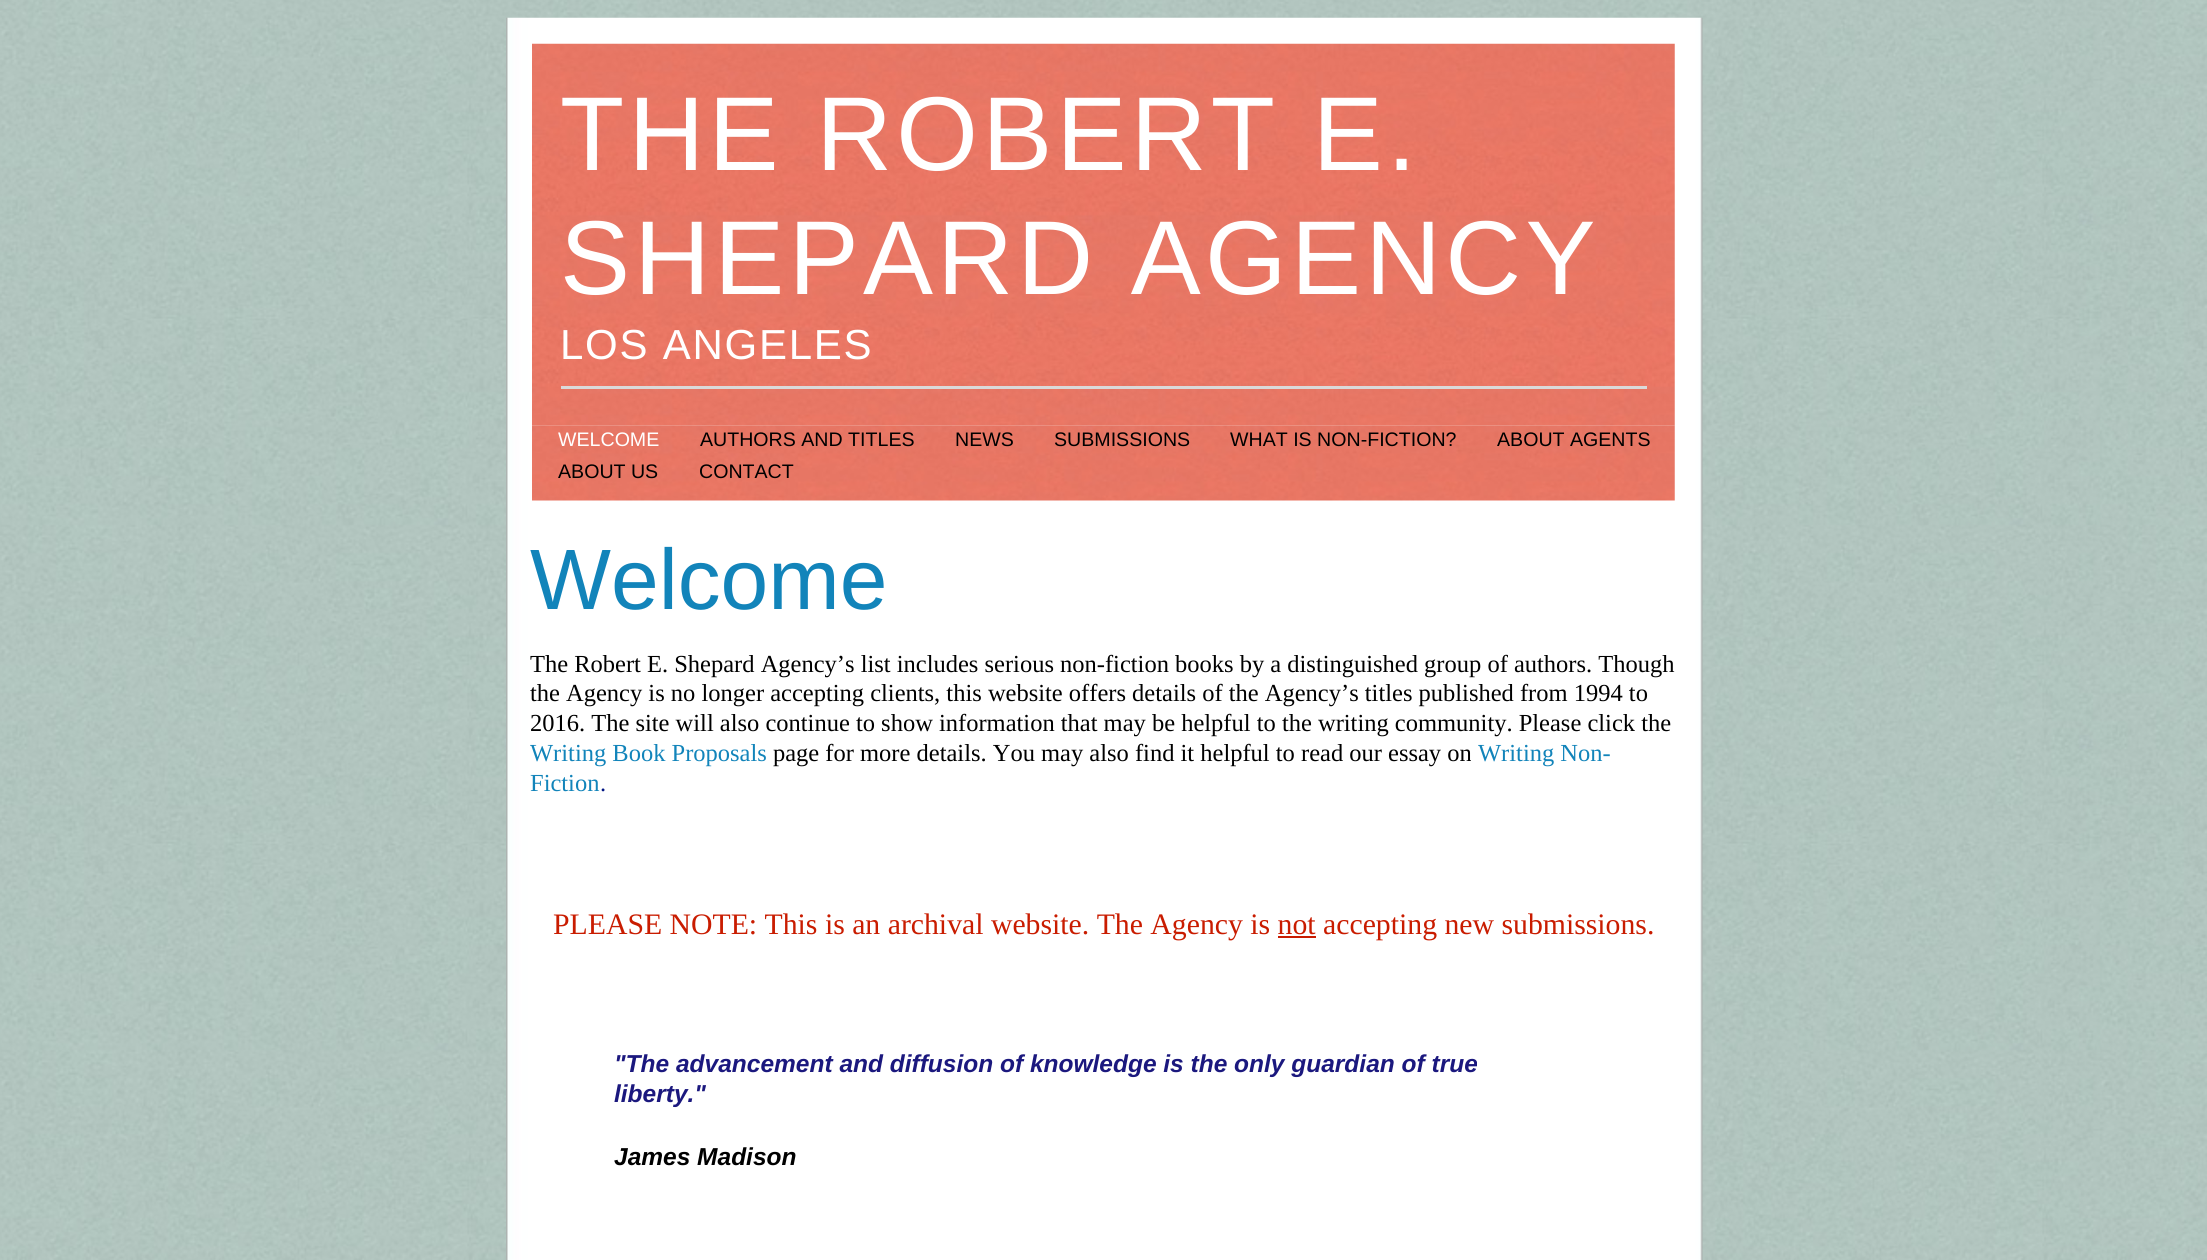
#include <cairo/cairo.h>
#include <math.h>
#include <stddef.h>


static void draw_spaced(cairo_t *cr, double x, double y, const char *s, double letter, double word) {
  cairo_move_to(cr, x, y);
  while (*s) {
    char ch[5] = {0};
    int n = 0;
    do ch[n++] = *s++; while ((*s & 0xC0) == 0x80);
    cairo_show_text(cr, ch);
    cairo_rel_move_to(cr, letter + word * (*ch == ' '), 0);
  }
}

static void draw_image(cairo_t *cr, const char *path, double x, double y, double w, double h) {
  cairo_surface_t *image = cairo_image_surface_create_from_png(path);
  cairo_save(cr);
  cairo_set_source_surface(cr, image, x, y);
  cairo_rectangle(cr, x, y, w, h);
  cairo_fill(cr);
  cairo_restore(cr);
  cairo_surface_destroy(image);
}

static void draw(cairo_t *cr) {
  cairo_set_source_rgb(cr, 1, 1, 1);
  cairo_paint(cr);
  draw_image(cr, "images/1.png", 0, 0, 2207, 1260);
  draw_image(cr, "images/2.png", 506, 17, 1197, 1243);
  draw_image(cr, "images/4.png", 532, 425, 1143, 76);
  draw_image(cr, "images/3.png", 532, 43, 1143, 383);
  cairo_set_source_rgb(cr, 218 / 255.0, 218 / 255.0, 218 / 255.0);
  cairo_rectangle(cr, 561, 386, 1086, 3);
  cairo_fill(cr);
  cairo_set_source_rgb(cr, 201 / 255.0, 28 / 255.0, 0);
  cairo_rectangle(cr, 1278, 936, 38, 2);
  cairo_fill(cr);
  cairo_select_font_face(cr, "Liberation Sans", CAIRO_FONT_SLANT_NORMAL, CAIRO_FONT_WEIGHT_NORMAL);
  cairo_set_font_size(cr, 105);
  cairo_set_source_rgb(cr, 1, 1, 1);
  draw_spaced(cr, 560, 170, "THE ROBERT E.", 4.25, 0);
  draw_spaced(cr, 560, 294, "SHEPARD AGENCY", 4.25, 0);
  cairo_set_font_size(cr, 42);
  draw_spaced(cr, 560, 359, "LOS ANGELES", 1.75, 0);
  cairo_set_font_size(cr, 19.6);
  cairo_move_to(cr, 558, 446);
  cairo_show_text(cr, "WELCOME");
  cairo_set_source_rgb(cr, 0, 0, 0);
  cairo_move_to(cr, 700, 446);
  cairo_show_text(cr, "AUTHORS AND TITLES");
  cairo_move_to(cr, 955, 446);
  cairo_show_text(cr, "NEWS");
  cairo_move_to(cr, 1054, 446);
  cairo_show_text(cr, "SUBMISSIONS");
  cairo_move_to(cr, 1230, 446);
  cairo_show_text(cr, "WHAT IS NON-FICTION?");
  cairo_move_to(cr, 1497, 446);
  cairo_show_text(cr, "ABOUT AGENTS");
  cairo_move_to(cr, 558, 478);
  cairo_show_text(cr, "ABOUT US");
  cairo_move_to(cr, 699, 478);
  cairo_show_text(cr, "CONTACT");
  cairo_set_font_size(cr, 85.75);
  cairo_set_source_rgb(cr, 18 / 255.0, 132 / 255.0, 186 / 255.0);
  cairo_move_to(cr, 530, 609);
  cairo_show_text(cr, "Welcome");
  cairo_select_font_face(cr, "Liberation Serif", CAIRO_FONT_SLANT_NORMAL, CAIRO_FONT_WEIGHT_NORMAL);
  cairo_set_font_size(cr, 24.5);
  cairo_set_source_rgb(cr, 0, 0, 0);
  cairo_move_to(cr, 530, 672);
  cairo_show_text(cr, "The Robert E. Shepard Agency’s list includes serious non-fiction books by a distinguished group of authors. Though");
  cairo_move_to(cr, 530, 701);
  cairo_show_text(cr, "the Agency is no longer accepting clients, this website offers details of the Agency’s titles published from 1994 to");
  cairo_move_to(cr, 530, 731);
  cairo_show_text(cr, "2016. The site will also continue to show information that may be helpful to the writing community. Please click the");
  cairo_set_source_rgb(cr, 18 / 255.0, 132 / 255.0, 186 / 255.0);
  cairo_move_to(cr, 530, 761);
  cairo_show_text(cr, "Writing Book Proposals");
  cairo_set_source_rgb(cr, 0, 0, 0);
  cairo_move_to(cr, 773, 761);
  cairo_show_text(cr, "page for more details. You may also find it helpful to read our essay on");
  cairo_set_source_rgb(cr, 18 / 255.0, 132 / 255.0, 186 / 255.0);
  cairo_move_to(cr, 1478, 761);
  cairo_show_text(cr, "Writing Non-");
  cairo_move_to(cr, 530, 791);
  cairo_show_text(cr, "Fiction");
  cairo_set_source_rgb(cr, 1 / 255.0, 21 / 255.0, 131 / 255.0);
  cairo_move_to(cr, 600, 791);
  cairo_show_text(cr, ".");
  cairo_set_font_size(cr, 29.75);
  cairo_set_source_rgb(cr, 201 / 255.0, 28 / 255.0, 0);
  cairo_move_to(cr, 553, 934);
  cairo_show_text(cr, "PLEASE NOTE: This is an archival website. The Agency is not accepting new submissions.");
  cairo_select_font_face(cr, "Liberation Sans", CAIRO_FONT_SLANT_ITALIC, CAIRO_FONT_WEIGHT_BOLD);
  cairo_set_font_size(cr, 24.5);
  cairo_set_source_rgb(cr, 27 / 255.0, 24 / 255.0, 126 / 255.0);
  cairo_move_to(cr, 614, 1072);
  cairo_show_text(cr, "\"The advancement and diffusion of knowledge is the only guardian of true");
  cairo_move_to(cr, 614, 1102);
  cairo_show_text(cr, "liberty.\"");
  cairo_set_source_rgb(cr, 0, 0, 0);
  cairo_move_to(cr, 614, 1165);
  cairo_show_text(cr, "James Madison");
}

int main(void) {
  cairo_surface_t *surface = cairo_image_surface_create(CAIRO_FORMAT_RGB24, 2207, 1260);
  cairo_t *cr = cairo_create(surface);
  cairo_font_options_t *options = cairo_font_options_create();
  cairo_font_options_set_hint_metrics(options, CAIRO_HINT_METRICS_OFF);
  cairo_font_options_set_hint_style(options, CAIRO_HINT_STYLE_NONE);
  cairo_set_font_options(cr, options);
  cairo_set_miter_limit(cr, 4);
  draw(cr);
  cairo_surface_write_to_png(surface, "out.png");
  cairo_font_options_destroy(options);
  cairo_destroy(cr);
  cairo_surface_destroy(surface);
  return 0;
}
